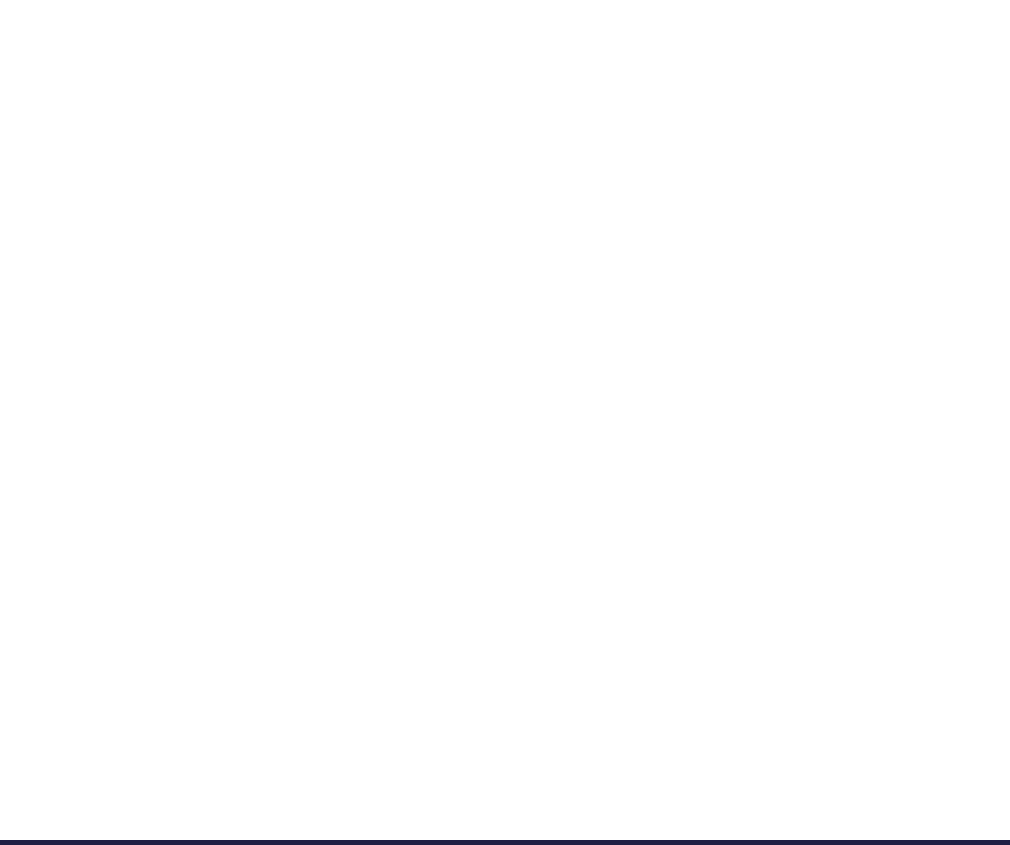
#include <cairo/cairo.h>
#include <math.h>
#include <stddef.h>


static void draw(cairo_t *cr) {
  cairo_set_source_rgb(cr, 1, 1, 1);
  cairo_paint(cr);
  cairo_set_source_rgb(cr, 31 / 255.0, 30 / 255.0, 67 / 255.0);
  cairo_rectangle(cr, 0, 840, 1010, 5);
  cairo_fill(cr);
}

int main(void) {
  cairo_surface_t *surface = cairo_image_surface_create(CAIRO_FORMAT_RGB24, 1010, 845);
  cairo_t *cr = cairo_create(surface);
  cairo_font_options_t *options = cairo_font_options_create();
  cairo_font_options_set_hint_metrics(options, CAIRO_HINT_METRICS_OFF);
  cairo_font_options_set_hint_style(options, CAIRO_HINT_STYLE_NONE);
  cairo_set_font_options(cr, options);
  cairo_set_miter_limit(cr, 4);
  draw(cr);
  cairo_surface_write_to_png(surface, "out.png");
  cairo_font_options_destroy(options);
  cairo_destroy(cr);
  cairo_surface_destroy(surface);
  return 0;
}
